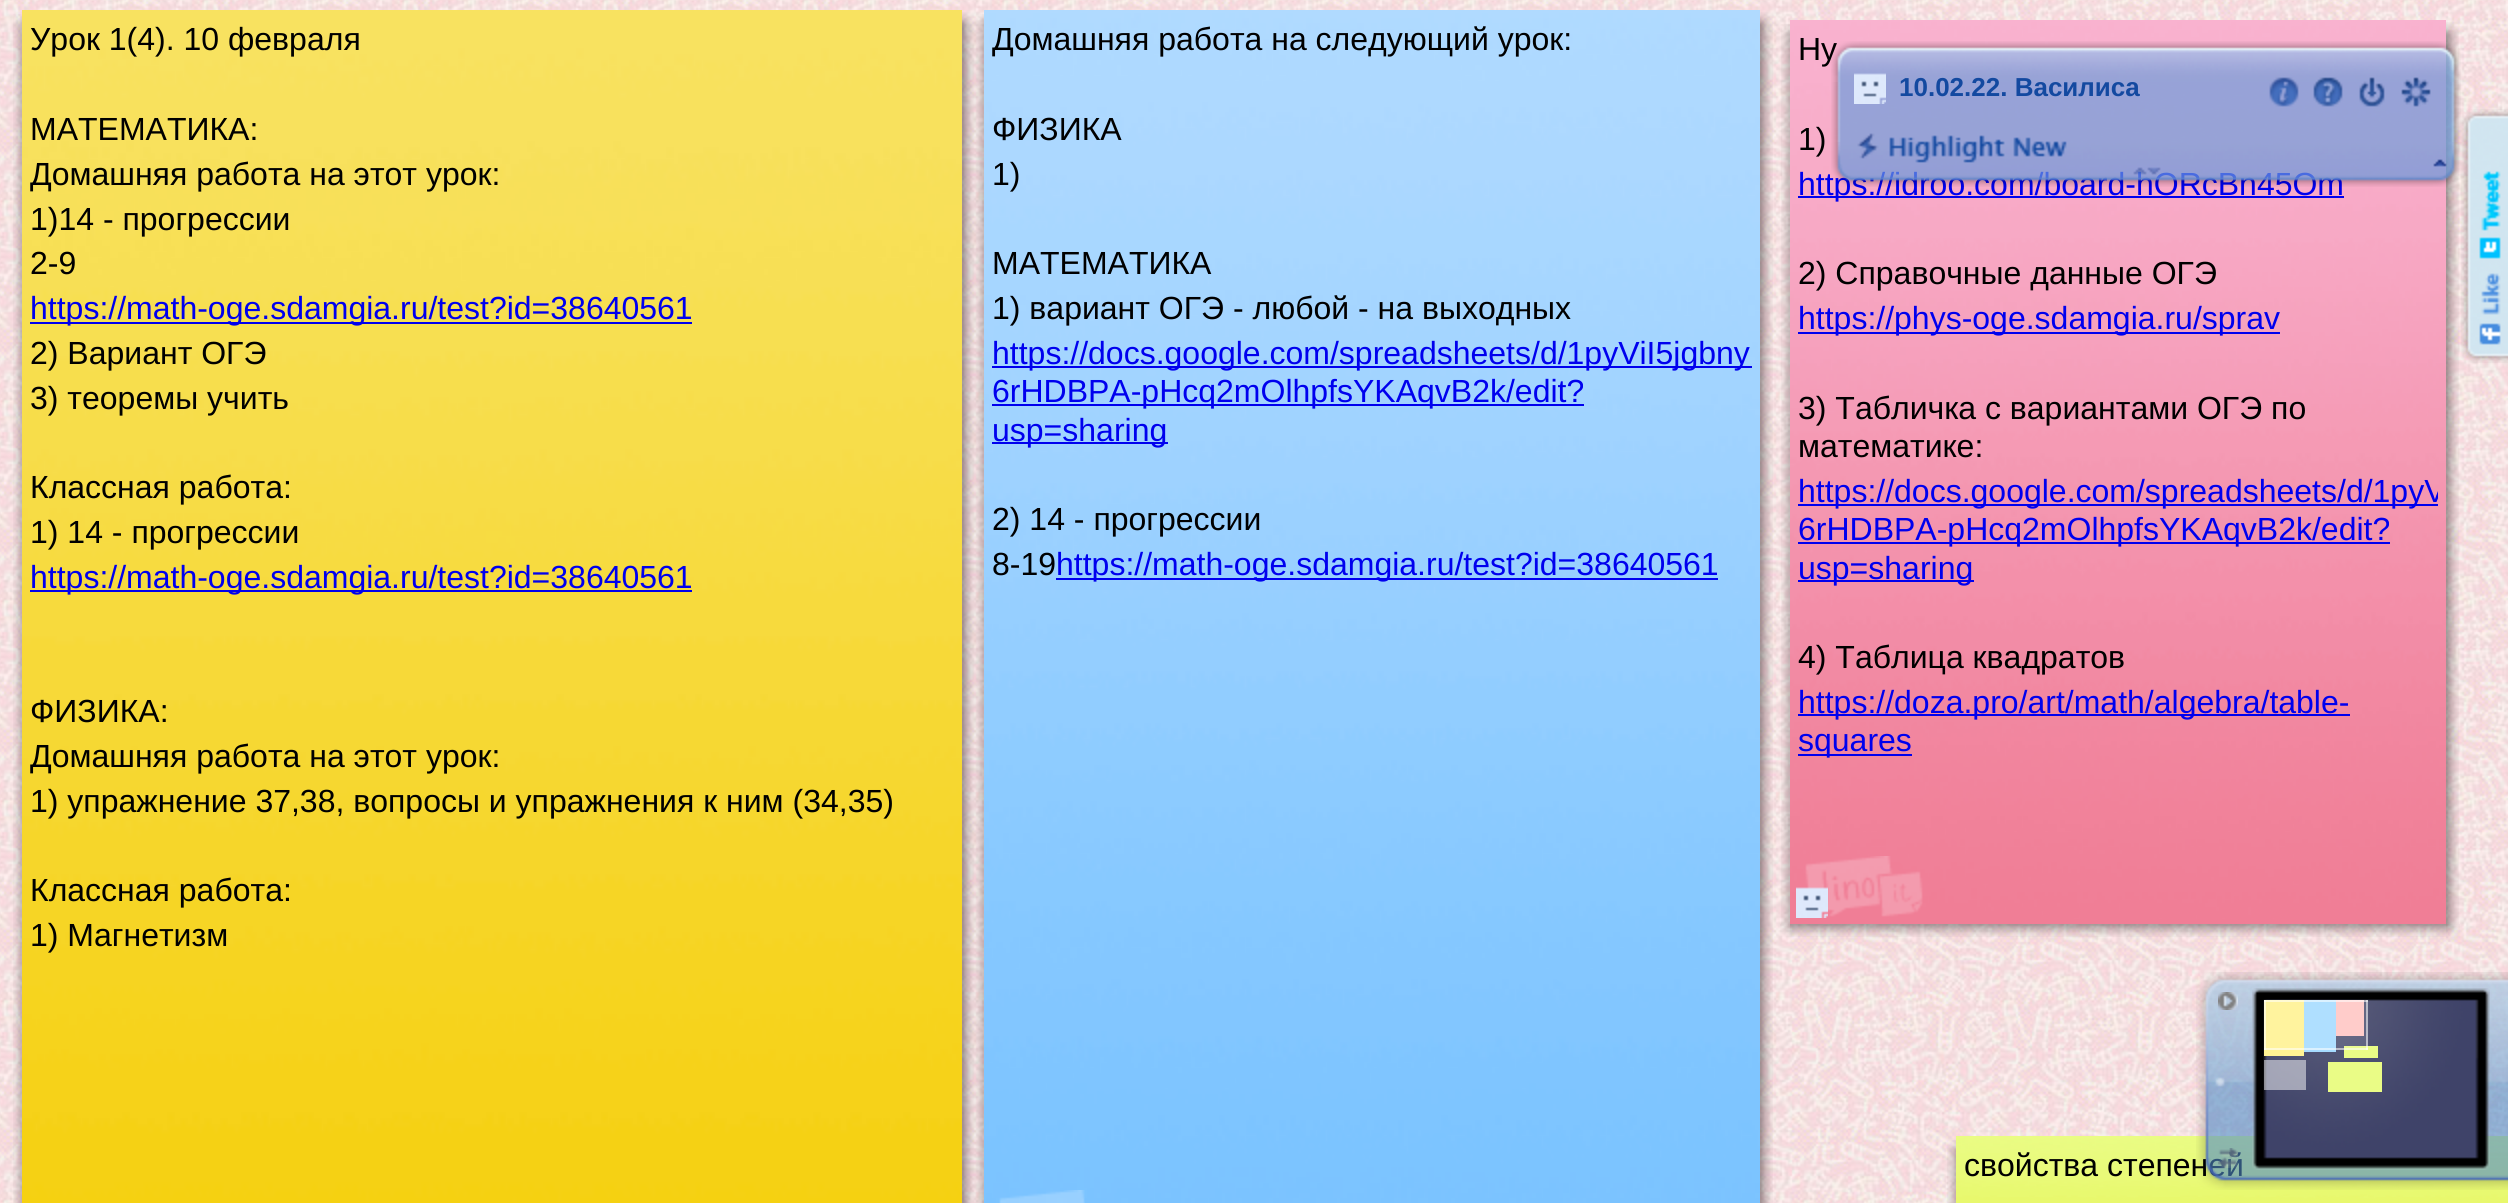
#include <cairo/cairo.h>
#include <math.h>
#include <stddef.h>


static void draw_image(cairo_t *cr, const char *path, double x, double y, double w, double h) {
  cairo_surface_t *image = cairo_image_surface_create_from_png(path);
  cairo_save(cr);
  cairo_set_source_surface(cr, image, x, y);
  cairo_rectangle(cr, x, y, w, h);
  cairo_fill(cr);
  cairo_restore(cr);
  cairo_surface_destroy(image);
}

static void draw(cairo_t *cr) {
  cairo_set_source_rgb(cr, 1, 1, 1);
  cairo_paint(cr);
  draw_image(cr, "images/1.png", 0, 0, 2508, 1203);
  draw_image(cr, "images/2.png", 13, 14, 9, 12);
  draw_image(cr, "images/3.png", 22, 10, 940, 1193);
  draw_image(cr, "images/4.png", 962, 12, 13, 14);
  draw_image(cr, "images/5.png", 13, 26, 9, 1177);
  draw_image(cr, "images/6.png", 962, 26, 13, 1177);
  cairo_set_source_rgb(cr, 0, 0, 238 / 255.0);
  cairo_rectangle(cr, 30, 322, 662, 2);
  cairo_fill(cr);
  cairo_rectangle(cr, 30, 590, 662, 2);
  cairo_fill(cr);
  draw_image(cr, "images/7.png", 975, 14, 9, 12);
  draw_image(cr, "images/8.png", 984, 10, 776, 1193);
  draw_image(cr, "images/9.png", 1760, 12, 13, 14);
  draw_image(cr, "images/10.png", 975, 26, 9, 1177);
  draw_image(cr, "images/11.png", 1760, 26, 13, 1177);
  cairo_rectangle(cr, 992, 366, 760, 2);
  cairo_fill(cr);
  cairo_rectangle(cr, 992, 404, 592, 2);
  cairo_fill(cr);
  cairo_rectangle(cr, 992, 442, 176, 2);
  cairo_fill(cr);
  cairo_rectangle(cr, 1056, 578, 662, 2);
  cairo_fill(cr);
  draw_image(cr, "images/12.png", 999, 1190, 86, 13);
  draw_image(cr, "images/13.png", 1781, 24, 9, 12);
  draw_image(cr, "images/14.png", 1790, 20, 656, 904);
  draw_image(cr, "images/15.png", 2446, 22, 13, 14);
  draw_image(cr, "images/16.png", 1781, 36, 9, 888);
  draw_image(cr, "images/17.png", 2446, 36, 13, 888);
  draw_image(cr, "images/18.png", 1780, 924, 10, 13);
  draw_image(cr, "images/19.png", 1790, 924, 656, 13);
  draw_image(cr, "images/20.png", 2446, 924, 14, 14);
  cairo_rectangle(cr, 1798, 196, 546, 2);
  cairo_fill(cr);
  cairo_rectangle(cr, 1798, 332, 482, 2);
  cairo_fill(cr);
  cairo_rectangle(cr, 1798, 504, 640, 2);
  cairo_fill(cr);
  cairo_rectangle(cr, 1798, 542, 592, 2);
  cairo_fill(cr);
  cairo_rectangle(cr, 1798, 580, 176, 2);
  cairo_fill(cr);
  cairo_rectangle(cr, 1798, 714, 552, 2);
  cairo_fill(cr);
  cairo_rectangle(cr, 1798, 754, 114, 2);
  cairo_fill(cr);
  draw_image(cr, "images/22.png", 1805, 856, 118, 61);
  draw_image(cr, "images/21.png", 1796, 887, 32, 31);
  draw_image(cr, "images/23.png", 1947, 1140, 9, 12);
  draw_image(cr, "images/24.png", 1956, 1136, 552, 67);
  draw_image(cr, "images/25.png", 1947, 1152, 9, 51);
  draw_image(cr, "images/27.png", 1831, 82, 630, 60);
  draw_image(cr, "images/37.png", 2461, 109, 47, 254);
  draw_image(cr, "images/41.png", 2246, 972, 262, 218);
  draw_image(cr, "images/42.png", 2252, 988, 238, 182);
  cairo_set_source_rgb(cr, 1, 242 / 255.0, 147 / 255.0);
  cairo_rectangle(cr, 2264, 1000, 40, 56);
  cairo_fill(cr);
  cairo_set_source_rgb(cr, 166 / 255.0, 219 / 255.0, 1);
  cairo_rectangle(cr, 2304, 1000, 32, 52);
  cairo_fill(cr);
  cairo_set_source_rgb(cr, 1, 199 / 255.0, 196 / 255.0);
  cairo_rectangle(cr, 2336, 1000, 28, 36);
  cairo_fill(cr);
  cairo_set_source_rgb(cr, 234 / 255.0, 252 / 255.0, 134 / 255.0);
  cairo_rectangle(cr, 2344, 1046, 34, 12);
  cairo_fill(cr);
  cairo_set_source_rgba(cr, 1, 1, 1, 0.1);
  cairo_rectangle(cr, 2266, 1000, 102, 50);
  cairo_fill(cr);
  cairo_set_source_rgb(cr, 1, 250 / 255.0, 211 / 255.0);
  cairo_rectangle(cr, 2264, 1000, 2, 50);
  cairo_fill(cr);
  cairo_set_source_rgba(cr, 1, 1, 1, 0.55);
  cairo_rectangle(cr, 2264, 1000, 104, 2);
  cairo_fill(cr);
  cairo_rectangle(cr, 2366, 1000, 2, 50);
  cairo_fill(cr);
  cairo_rectangle(cr, 2264, 1048, 104, 2);
  cairo_fill(cr);
  cairo_set_source_rgba(cr, 1, 1, 1, 0.5);
  cairo_rectangle(cr, 2264, 1060, 42, 30);
  cairo_fill(cr);
  cairo_set_source_rgb(cr, 234 / 255.0, 252 / 255.0, 134 / 255.0);
  cairo_rectangle(cr, 2328, 1062, 54, 30);
  cairo_fill(cr);
  cairo_select_font_face(cr, "Liberation Sans", CAIRO_FONT_SLANT_NORMAL, CAIRO_FONT_WEIGHT_NORMAL);
  cairo_set_font_size(cr, 32);
  cairo_set_source_rgb(cr, 0, 0, 0);
  cairo_move_to(cr, 30, 50);
  cairo_show_text(cr, "Урок 1(4). 10 февраля");
  cairo_move_to(cr, 30, 140);
  cairo_show_text(cr, "МАТЕМАТИКА:");
  cairo_move_to(cr, 30, 185);
  cairo_show_text(cr, "Домашняя работа на этот урок:");
  cairo_move_to(cr, 30, 230);
  cairo_show_text(cr, "1)14 - прогрессии");
  cairo_move_to(cr, 30, 274);
  cairo_show_text(cr, "2-9");
  cairo_set_source_rgb(cr, 0, 0, 238 / 255.0);
  cairo_move_to(cr, 30, 319);
  cairo_show_text(cr, "https://math-oge.sdamgia.ru/test?id=38640561");
  cairo_set_source_rgb(cr, 0, 0, 0);
  cairo_move_to(cr, 30, 364);
  cairo_show_text(cr, "2) Вариант ОГЭ");
  cairo_move_to(cr, 30, 409);
  cairo_show_text(cr, "3) теоремы учить");
  cairo_move_to(cr, 30, 498);
  cairo_show_text(cr, "Классная работа:");
  cairo_move_to(cr, 30, 543);
  cairo_show_text(cr, "1) 14 - прогрессии");
  cairo_set_source_rgb(cr, 0, 0, 238 / 255.0);
  cairo_move_to(cr, 30, 588);
  cairo_show_text(cr, "https://math-oge.sdamgia.ru/test?id=38640561");
  cairo_set_source_rgb(cr, 0, 0, 0);
  cairo_move_to(cr, 30, 722);
  cairo_show_text(cr, "ФИЗИКА:");
  cairo_move_to(cr, 30, 767);
  cairo_show_text(cr, "Домашняя работа на этот урок:");
  cairo_move_to(cr, 30, 812);
  cairo_show_text(cr, "1) упражнение 37,38, вопросы и упражнения к ним (34,35)");
  cairo_move_to(cr, 30, 901);
  cairo_show_text(cr, "Классная работа:");
  cairo_move_to(cr, 30, 946);
  cairo_show_text(cr, "1) Магнетизм");
  cairo_move_to(cr, 992, 50);
  cairo_show_text(cr, "Домашняя работа на следующий урок:");
  cairo_move_to(cr, 992, 140);
  cairo_show_text(cr, "ФИЗИКА");
  cairo_move_to(cr, 992, 185);
  cairo_show_text(cr, "1)");
  cairo_move_to(cr, 992, 274);
  cairo_show_text(cr, "МАТЕМАТИКА");
  cairo_move_to(cr, 992, 319);
  cairo_show_text(cr, "1) вариант ОГЭ - любой - на выходных");
  cairo_set_source_rgb(cr, 0, 0, 238 / 255.0);
  cairo_move_to(cr, 992, 364);
  cairo_show_text(cr, "https://docs.google.com/spreadsheets/d/1pyViI5jgbny");
  cairo_move_to(cr, 992, 402);
  cairo_show_text(cr, "6rHDBPA-pHcq2mOlhpfsYKAqvB2k/edit?");
  cairo_move_to(cr, 992, 441);
  cairo_show_text(cr, "usp=sharing");
  cairo_set_source_rgb(cr, 0, 0, 0);
  cairo_move_to(cr, 992, 530);
  cairo_show_text(cr, "2) 14 - прогрессии");
  cairo_move_to(cr, 992, 575);
  cairo_show_text(cr, "8-19");
  cairo_set_source_rgb(cr, 0, 0, 238 / 255.0);
  cairo_move_to(cr, 1056, 575);
  cairo_show_text(cr, "https://math-oge.sdamgia.ru/test?id=38640561");
  cairo_set_source_rgb(cr, 0, 0, 0);
  cairo_move_to(cr, 1798, 60);
  cairo_show_text(cr, "Ну");
  cairo_move_to(cr, 1798, 150);
  cairo_show_text(cr, "1)");
  cairo_set_source_rgb(cr, 0, 0, 238 / 255.0);
  cairo_move_to(cr, 1798, 195);
  cairo_show_text(cr, "https://idroo.com/board-hORcBn45Om");
  cairo_set_source_rgb(cr, 0, 0, 0);
  cairo_move_to(cr, 1798, 284);
  cairo_show_text(cr, "2) Справочные данные ОГЭ");
  cairo_set_source_rgb(cr, 0, 0, 238 / 255.0);
  cairo_move_to(cr, 1798, 329);
  cairo_show_text(cr, "https://phys-oge.sdamgia.ru/sprav");
  cairo_set_source_rgb(cr, 0, 0, 0);
  cairo_move_to(cr, 1798, 419);
  cairo_show_text(cr, "3) Табличка с вариантами ОГЭ по");
  cairo_move_to(cr, 1798, 457);
  cairo_show_text(cr, "математике:");
  cairo_save(cr);
  cairo_rectangle(cr, 1798, 24, 640, 852);
  cairo_clip(cr);
  cairo_set_source_rgb(cr, 0, 0, 238 / 255.0);
  cairo_move_to(cr, 1798, 502);
  cairo_show_text(cr, "https://docs.google.com/spreadsheets/d/1pyV");
  cairo_restore(cr);
  cairo_set_source_rgb(cr, 0, 0, 238 / 255.0);
  cairo_move_to(cr, 1798, 540);
  cairo_show_text(cr, "6rHDBPA-pHcq2mOlhpfsYKAqvB2k/edit?");
  cairo_move_to(cr, 1798, 579);
  cairo_show_text(cr, "usp=sharing");
  cairo_set_source_rgb(cr, 0, 0, 0);
  cairo_move_to(cr, 1798, 668);
  cairo_show_text(cr, "4) Таблица квадратов");
  cairo_set_source_rgb(cr, 0, 0, 238 / 255.0);
  cairo_move_to(cr, 1798, 713);
  cairo_show_text(cr, "https://doza.pro/art/math/algebra/table-");
  cairo_move_to(cr, 1798, 751);
  cairo_show_text(cr, "squares");
  cairo_set_source_rgb(cr, 0, 0, 0);
  cairo_move_to(cr, 1964, 1176);
  cairo_show_text(cr, "свойства степеней");
  draw_image(cr, "images/26.png", 1831, 41, 630, 41);
  draw_image(cr, "images/28.png", 1831, 142, 630, 45);
  draw_image(cr, "images/29.png", 1854, 73, 32, 31);
  cairo_select_font_face(cr, "Liberation Sans", CAIRO_FONT_SLANT_NORMAL, CAIRO_FONT_WEIGHT_BOLD);
  cairo_set_font_size(cr, 26);
  cairo_set_source_rgb(cr, 19 / 255.0, 73 / 255.0, 160 / 255.0);
  cairo_move_to(cr, 1899, 96);
  cairo_show_text(cr, "10.02.22. Василиса");
  draw_image(cr, "images/30.png", 2269, 77, 30, 30);
  draw_image(cr, "images/31.png", 2313, 77, 30, 30);
  draw_image(cr, "images/32.png", 2359, 77, 26, 30);
  draw_image(cr, "images/33.png", 2401, 77, 30, 30);
  draw_image(cr, "images/34.png", 1857, 133, 210, 30);
  draw_image(cr, "images/35.png", 2433, 159, 14, 8);
  draw_image(cr, "images/36.png", 2133, 167, 28, 8);
  draw_image(cr, "images/38.png", 2196, 972, 50, 218);
  draw_image(cr, "images/39.png", 2218, 992, 20, 18);
  draw_image(cr, "images/40.png", 2218, 1148, 20, 20);
}

int main(void) {
  cairo_surface_t *surface = cairo_image_surface_create(CAIRO_FORMAT_RGB24, 2508, 1203);
  cairo_t *cr = cairo_create(surface);
  cairo_font_options_t *options = cairo_font_options_create();
  cairo_font_options_set_hint_metrics(options, CAIRO_HINT_METRICS_OFF);
  cairo_font_options_set_hint_style(options, CAIRO_HINT_STYLE_NONE);
  cairo_set_font_options(cr, options);
  cairo_set_miter_limit(cr, 4);
  draw(cr);
  cairo_surface_write_to_png(surface, "out.png");
  cairo_font_options_destroy(options);
  cairo_destroy(cr);
  cairo_surface_destroy(surface);
  return 0;
}
